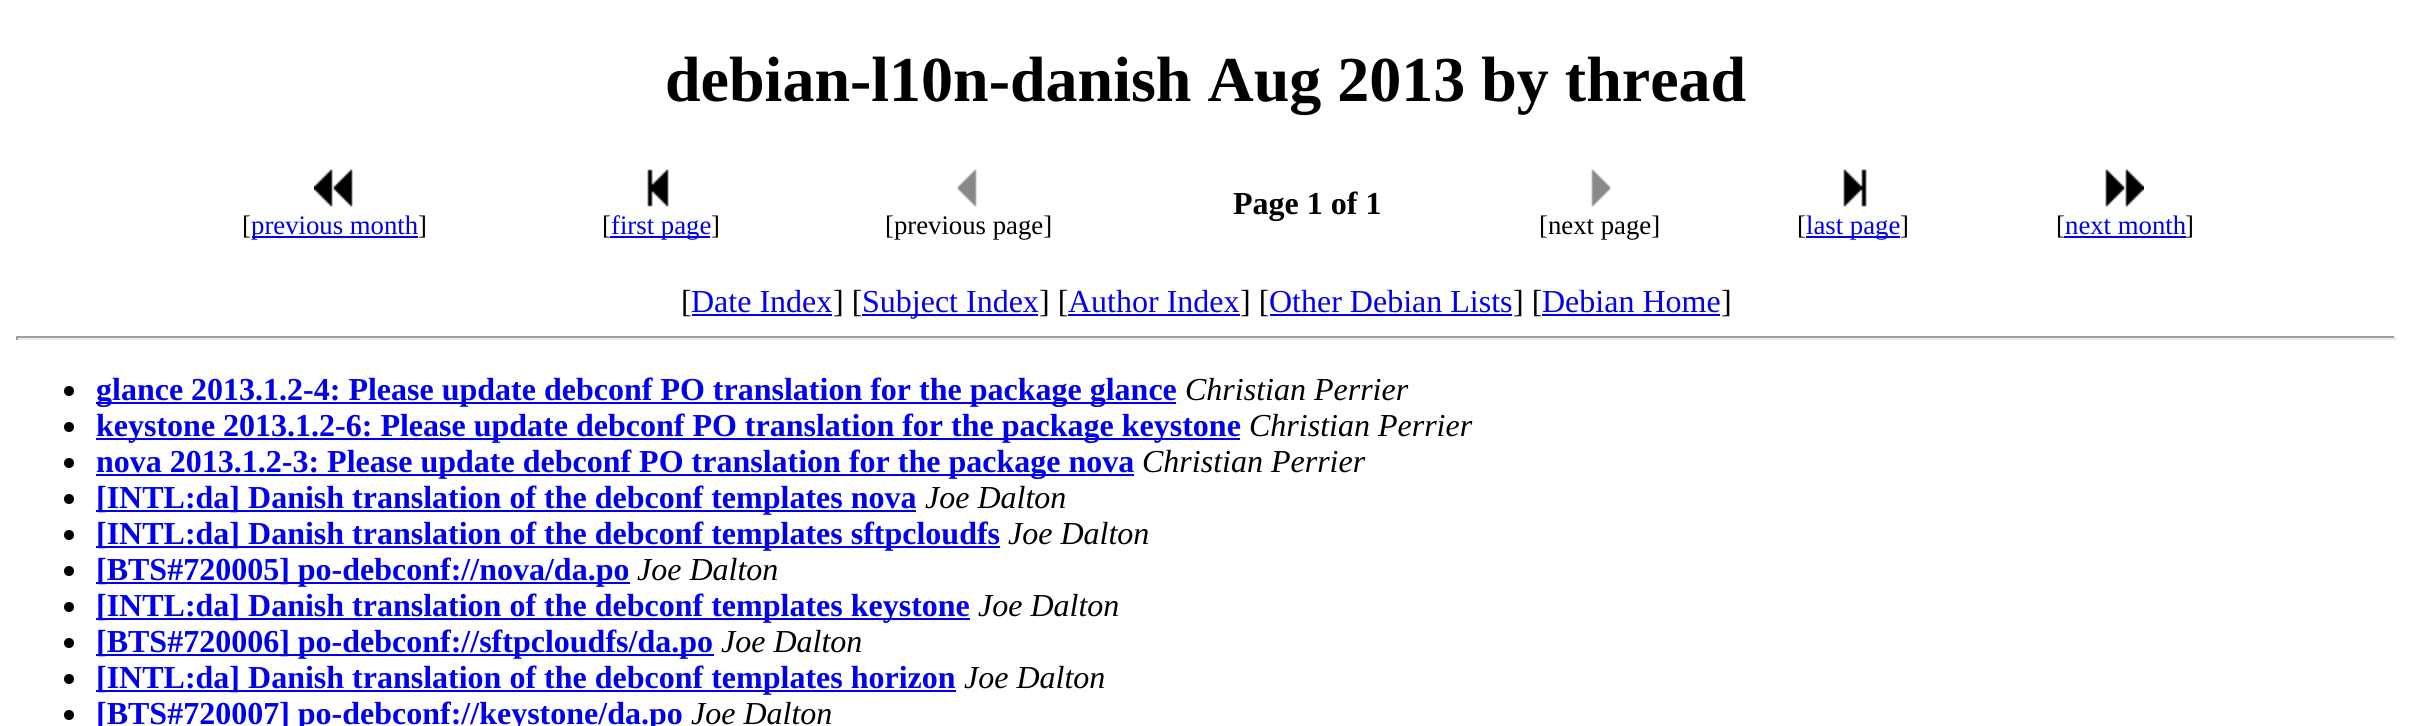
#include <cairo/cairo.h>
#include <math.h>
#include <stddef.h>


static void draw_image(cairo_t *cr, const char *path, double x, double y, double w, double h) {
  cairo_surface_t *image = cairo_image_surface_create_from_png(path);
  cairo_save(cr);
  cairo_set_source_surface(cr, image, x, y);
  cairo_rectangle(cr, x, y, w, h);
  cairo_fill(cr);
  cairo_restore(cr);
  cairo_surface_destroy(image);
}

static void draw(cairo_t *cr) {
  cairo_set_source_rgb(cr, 1, 1, 1);
  cairo_paint(cr);
  draw_image(cr, "images/1.png", 314, 169, 39, 38);
  cairo_set_source_rgb(cr, 0, 0, 238 / 255.0);
  cairo_rectangle(cr, 252, 236, 166, 2);
  cairo_fill(cr);
  draw_image(cr, "images/2.png", 647, 169, 22, 38);
  cairo_rectangle(cr, 610, 236, 100, 2);
  cairo_fill(cr);
  draw_image(cr, "images/3.png", 957, 169, 20, 38);
  draw_image(cr, "images/4.png", 1591, 169, 20, 38);
  draw_image(cr, "images/5.png", 1843, 169, 24, 38);
  cairo_rectangle(cr, 1806, 236, 94, 2);
  cairo_fill(cr);
  draw_image(cr, "images/6.png", 2105, 169, 39, 38);
  cairo_rectangle(cr, 2064, 236, 122, 2);
  cairo_fill(cr);
  cairo_rectangle(cr, 692, 314, 140, 2);
  cairo_fill(cr);
  cairo_rectangle(cr, 862, 314, 176, 2);
  cairo_fill(cr);
  cairo_rectangle(cr, 1068, 314, 172, 2);
  cairo_fill(cr);
  cairo_rectangle(cr, 1270, 314, 242, 2);
  cairo_fill(cr);
  cairo_rectangle(cr, 1542, 314, 178, 2);
  cairo_fill(cr);
  cairo_set_source_rgb(cr, 159 / 255.0, 159 / 255.0, 159 / 255.0);
  cairo_rectangle(cr, 16, 336, 2380, 2);
  cairo_fill(cr);
  cairo_set_source_rgb(cr, 238 / 255.0, 238 / 255.0, 238 / 255.0);
  cairo_rectangle(cr, 2394, 336, 2, 4);
  cairo_fill(cr);
  cairo_rectangle(cr, 16, 338, 2380, 2);
  cairo_fill(cr);
  cairo_set_source_rgb(cr, 159 / 255.0, 159 / 255.0, 159 / 255.0);
  cairo_rectangle(cr, 16, 336, 2, 4);
  cairo_fill(cr);
  cairo_set_source_rgb(cr, 0, 0, 0);
  cairo_arc(cr, 69, 391, 5, 0, 2 * M_PI);
  cairo_fill(cr);
  cairo_set_source_rgb(cr, 0, 0, 238 / 255.0);
  cairo_rectangle(cr, 96, 402, 1080, 2);
  cairo_fill(cr);
  cairo_set_source_rgb(cr, 0, 0, 0);
  cairo_arc(cr, 69, 427, 5, 0, 2 * M_PI);
  cairo_fill(cr);
  cairo_set_source_rgb(cr, 0, 0, 238 / 255.0);
  cairo_rectangle(cr, 96, 438, 1144, 2);
  cairo_fill(cr);
  cairo_set_source_rgb(cr, 0, 0, 0);
  cairo_arc(cr, 69, 463, 5, 0, 2 * M_PI);
  cairo_fill(cr);
  cairo_set_source_rgb(cr, 0, 0, 238 / 255.0);
  cairo_rectangle(cr, 96, 474, 1038, 2);
  cairo_fill(cr);
  cairo_set_source_rgb(cr, 0, 0, 0);
  cairo_arc(cr, 69, 499, 5, 0, 2 * M_PI);
  cairo_fill(cr);
  cairo_set_source_rgb(cr, 0, 0, 238 / 255.0);
  cairo_rectangle(cr, 96, 510, 820, 2);
  cairo_fill(cr);
  cairo_set_source_rgb(cr, 0, 0, 0);
  cairo_arc(cr, 69, 535, 5, 0, 2 * M_PI);
  cairo_fill(cr);
  cairo_set_source_rgb(cr, 0, 0, 238 / 255.0);
  cairo_rectangle(cr, 96, 546, 904, 2);
  cairo_fill(cr);
  cairo_set_source_rgb(cr, 0, 0, 0);
  cairo_arc(cr, 69, 571, 5, 0, 2 * M_PI);
  cairo_fill(cr);
  cairo_set_source_rgb(cr, 0, 0, 238 / 255.0);
  cairo_rectangle(cr, 96, 582, 534, 2);
  cairo_fill(cr);
  cairo_set_source_rgb(cr, 0, 0, 0);
  cairo_arc(cr, 69, 607, 5, 0, 2 * M_PI);
  cairo_fill(cr);
  cairo_set_source_rgb(cr, 0, 0, 238 / 255.0);
  cairo_rectangle(cr, 96, 618, 874, 2);
  cairo_fill(cr);
  cairo_set_source_rgb(cr, 0, 0, 0);
  cairo_arc(cr, 69, 643, 5, 0, 2 * M_PI);
  cairo_fill(cr);
  cairo_set_source_rgb(cr, 0, 0, 238 / 255.0);
  cairo_rectangle(cr, 96, 654, 618, 2);
  cairo_fill(cr);
  cairo_set_source_rgb(cr, 0, 0, 0);
  cairo_arc(cr, 69, 679, 5, 0, 2 * M_PI);
  cairo_fill(cr);
  cairo_set_source_rgb(cr, 0, 0, 238 / 255.0);
  cairo_rectangle(cr, 96, 690, 860, 2);
  cairo_fill(cr);
  cairo_set_source_rgb(cr, 0, 0, 0);
  cairo_arc(cr, 69, 715, 5, 0, 2 * M_PI);
  cairo_fill(cr);
  cairo_select_font_face(cr, "Liberation Serif", CAIRO_FONT_SLANT_NORMAL, CAIRO_FONT_WEIGHT_BOLD);
  cairo_set_font_size(cr, 64);
  cairo_move_to(cr, 665, 101);
  cairo_show_text(cr, "debian-l10n-danish Aug 2013 by thread");
  cairo_set_font_size(cr, 32);
  cairo_move_to(cr, 1233, 214);
  cairo_show_text(cr, "Page 1 of 1");
  cairo_select_font_face(cr, "Liberation Serif", CAIRO_FONT_SLANT_NORMAL, CAIRO_FONT_WEIGHT_NORMAL);
  cairo_set_font_size(cr, 26.75);
  cairo_move_to(cr, 242, 234);
  cairo_show_text(cr, "[");
  cairo_set_source_rgb(cr, 0, 0, 238 / 255.0);
  cairo_move_to(cr, 251, 234);
  cairo_show_text(cr, "previous month");
  cairo_set_source_rgb(cr, 0, 0, 0);
  cairo_move_to(cr, 418, 234);
  cairo_show_text(cr, "]");
  cairo_move_to(cr, 602, 234);
  cairo_show_text(cr, "[");
  cairo_set_source_rgb(cr, 0, 0, 238 / 255.0);
  cairo_move_to(cr, 611, 234);
  cairo_show_text(cr, "first page");
  cairo_set_source_rgb(cr, 0, 0, 0);
  cairo_move_to(cr, 711, 234);
  cairo_show_text(cr, "]");
  cairo_move_to(cr, 885, 234);
  cairo_show_text(cr, "[previous page]");
  cairo_move_to(cr, 1539, 234);
  cairo_show_text(cr, "[next page]");
  cairo_move_to(cr, 1797, 234);
  cairo_show_text(cr, "[");
  cairo_set_source_rgb(cr, 0, 0, 238 / 255.0);
  cairo_move_to(cr, 1806, 234);
  cairo_show_text(cr, "last page");
  cairo_set_source_rgb(cr, 0, 0, 0);
  cairo_move_to(cr, 1900, 234);
  cairo_show_text(cr, "]");
  cairo_move_to(cr, 2056, 234);
  cairo_show_text(cr, "[");
  cairo_set_source_rgb(cr, 0, 0, 238 / 255.0);
  cairo_move_to(cr, 2065, 234);
  cairo_show_text(cr, "next month");
  cairo_set_source_rgb(cr, 0, 0, 0);
  cairo_move_to(cr, 2185, 234);
  cairo_show_text(cr, "]");
  cairo_set_font_size(cr, 32);
  cairo_move_to(cr, 681, 312);
  cairo_show_text(cr, "[");
  cairo_set_source_rgb(cr, 0, 0, 238 / 255.0);
  cairo_move_to(cr, 691, 312);
  cairo_show_text(cr, "Date Index");
  cairo_set_source_rgb(cr, 0, 0, 0);
  cairo_move_to(cr, 833, 312);
  cairo_show_text(cr, "] [");
  cairo_set_source_rgb(cr, 0, 0, 238 / 255.0);
  cairo_move_to(cr, 862, 312);
  cairo_show_text(cr, "Subject Index");
  cairo_set_source_rgb(cr, 0, 0, 0);
  cairo_move_to(cr, 1039, 312);
  cairo_show_text(cr, "] [");
  cairo_set_source_rgb(cr, 0, 0, 238 / 255.0);
  cairo_move_to(cr, 1068, 312);
  cairo_show_text(cr, "Author Index");
  cairo_set_source_rgb(cr, 0, 0, 0);
  cairo_move_to(cr, 1240, 312);
  cairo_show_text(cr, "] [");
  cairo_set_source_rgb(cr, 0, 0, 238 / 255.0);
  cairo_move_to(cr, 1269, 312);
  cairo_show_text(cr, "Other Debian Lists");
  cairo_set_source_rgb(cr, 0, 0, 0);
  cairo_move_to(cr, 1513, 312);
  cairo_show_text(cr, "] [");
  cairo_set_source_rgb(cr, 0, 0, 238 / 255.0);
  cairo_move_to(cr, 1542, 312);
  cairo_show_text(cr, "Debian Home");
  cairo_set_source_rgb(cr, 0, 0, 0);
  cairo_move_to(cr, 1721, 312);
  cairo_show_text(cr, "]");
  cairo_select_font_face(cr, "Liberation Serif", CAIRO_FONT_SLANT_NORMAL, CAIRO_FONT_WEIGHT_BOLD);
  cairo_set_source_rgb(cr, 0, 0, 238 / 255.0);
  cairo_move_to(cr, 96, 400);
  cairo_show_text(cr, "glance 2013.1.2-4: Please update debconf PO translation for the package glance");
  cairo_select_font_face(cr, "Liberation Serif", CAIRO_FONT_SLANT_ITALIC, CAIRO_FONT_WEIGHT_NORMAL);
  cairo_set_source_rgb(cr, 0, 0, 0);
  cairo_move_to(cr, 1185, 400);
  cairo_show_text(cr, "Christian Perrier");
  cairo_select_font_face(cr, "Liberation Serif", CAIRO_FONT_SLANT_NORMAL, CAIRO_FONT_WEIGHT_BOLD);
  cairo_set_source_rgb(cr, 0, 0, 238 / 255.0);
  cairo_move_to(cr, 96, 436);
  cairo_show_text(cr, "keystone 2013.1.2-6: Please update debconf PO translation for the package keystone");
  cairo_select_font_face(cr, "Liberation Serif", CAIRO_FONT_SLANT_ITALIC, CAIRO_FONT_WEIGHT_NORMAL);
  cairo_set_source_rgb(cr, 0, 0, 0);
  cairo_move_to(cr, 1249, 436);
  cairo_show_text(cr, "Christian Perrier");
  cairo_select_font_face(cr, "Liberation Serif", CAIRO_FONT_SLANT_NORMAL, CAIRO_FONT_WEIGHT_BOLD);
  cairo_set_source_rgb(cr, 0, 0, 238 / 255.0);
  cairo_move_to(cr, 96, 472);
  cairo_show_text(cr, "nova 2013.1.2-3: Please update debconf PO translation for the package nova");
  cairo_select_font_face(cr, "Liberation Serif", CAIRO_FONT_SLANT_ITALIC, CAIRO_FONT_WEIGHT_NORMAL);
  cairo_set_source_rgb(cr, 0, 0, 0);
  cairo_move_to(cr, 1142, 472);
  cairo_show_text(cr, "Christian Perrier");
  cairo_select_font_face(cr, "Liberation Serif", CAIRO_FONT_SLANT_NORMAL, CAIRO_FONT_WEIGHT_BOLD);
  cairo_set_source_rgb(cr, 0, 0, 238 / 255.0);
  cairo_move_to(cr, 96, 508);
  cairo_show_text(cr, "[INTL:da] Danish translation of the debconf templates nova");
  cairo_select_font_face(cr, "Liberation Serif", CAIRO_FONT_SLANT_ITALIC, CAIRO_FONT_WEIGHT_NORMAL);
  cairo_set_source_rgb(cr, 0, 0, 0);
  cairo_move_to(cr, 925, 508);
  cairo_show_text(cr, "Joe Dalton");
  cairo_select_font_face(cr, "Liberation Serif", CAIRO_FONT_SLANT_NORMAL, CAIRO_FONT_WEIGHT_BOLD);
  cairo_set_source_rgb(cr, 0, 0, 238 / 255.0);
  cairo_move_to(cr, 96, 544);
  cairo_show_text(cr, "[INTL:da] Danish translation of the debconf templates sftpcloudfs");
  cairo_select_font_face(cr, "Liberation Serif", CAIRO_FONT_SLANT_ITALIC, CAIRO_FONT_WEIGHT_NORMAL);
  cairo_set_source_rgb(cr, 0, 0, 0);
  cairo_move_to(cr, 1008, 544);
  cairo_show_text(cr, "Joe Dalton");
  cairo_select_font_face(cr, "Liberation Serif", CAIRO_FONT_SLANT_NORMAL, CAIRO_FONT_WEIGHT_BOLD);
  cairo_set_source_rgb(cr, 0, 0, 238 / 255.0);
  cairo_move_to(cr, 96, 580);
  cairo_show_text(cr, "[BTS#720005] po-debconf://nova/da.po");
  cairo_select_font_face(cr, "Liberation Serif", CAIRO_FONT_SLANT_ITALIC, CAIRO_FONT_WEIGHT_NORMAL);
  cairo_set_source_rgb(cr, 0, 0, 0);
  cairo_move_to(cr, 637, 580);
  cairo_show_text(cr, "Joe Dalton");
  cairo_select_font_face(cr, "Liberation Serif", CAIRO_FONT_SLANT_NORMAL, CAIRO_FONT_WEIGHT_BOLD);
  cairo_set_source_rgb(cr, 0, 0, 238 / 255.0);
  cairo_move_to(cr, 96, 616);
  cairo_show_text(cr, "[INTL:da] Danish translation of the debconf templates keystone");
  cairo_select_font_face(cr, "Liberation Serif", CAIRO_FONT_SLANT_ITALIC, CAIRO_FONT_WEIGHT_NORMAL);
  cairo_set_source_rgb(cr, 0, 0, 0);
  cairo_move_to(cr, 978, 616);
  cairo_show_text(cr, "Joe Dalton");
  cairo_select_font_face(cr, "Liberation Serif", CAIRO_FONT_SLANT_NORMAL, CAIRO_FONT_WEIGHT_BOLD);
  cairo_set_source_rgb(cr, 0, 0, 238 / 255.0);
  cairo_move_to(cr, 96, 652);
  cairo_show_text(cr, "[BTS#720006] po-debconf://sftpcloudfs/da.po");
  cairo_select_font_face(cr, "Liberation Serif", CAIRO_FONT_SLANT_ITALIC, CAIRO_FONT_WEIGHT_NORMAL);
  cairo_set_source_rgb(cr, 0, 0, 0);
  cairo_move_to(cr, 721, 652);
  cairo_show_text(cr, "Joe Dalton");
  cairo_select_font_face(cr, "Liberation Serif", CAIRO_FONT_SLANT_NORMAL, CAIRO_FONT_WEIGHT_BOLD);
  cairo_set_source_rgb(cr, 0, 0, 238 / 255.0);
  cairo_move_to(cr, 96, 688);
  cairo_show_text(cr, "[INTL:da] Danish translation of the debconf templates horizon");
  cairo_select_font_face(cr, "Liberation Serif", CAIRO_FONT_SLANT_ITALIC, CAIRO_FONT_WEIGHT_NORMAL);
  cairo_set_source_rgb(cr, 0, 0, 0);
  cairo_move_to(cr, 964, 688);
  cairo_show_text(cr, "Joe Dalton");
  cairo_select_font_face(cr, "Liberation Serif", CAIRO_FONT_SLANT_NORMAL, CAIRO_FONT_WEIGHT_BOLD);
  cairo_set_source_rgb(cr, 0, 0, 238 / 255.0);
  cairo_move_to(cr, 96, 724);
  cairo_show_text(cr, "[BTS#720007] po-debconf://keystone/da.po");
  cairo_select_font_face(cr, "Liberation Serif", CAIRO_FONT_SLANT_ITALIC, CAIRO_FONT_WEIGHT_NORMAL);
  cairo_set_source_rgb(cr, 0, 0, 0);
  cairo_move_to(cr, 691, 724);
  cairo_show_text(cr, "Joe Dalton");
}

int main(void) {
  cairo_surface_t *surface = cairo_image_surface_create(CAIRO_FORMAT_RGB24, 2412, 726);
  cairo_t *cr = cairo_create(surface);
  cairo_font_options_t *options = cairo_font_options_create();
  cairo_font_options_set_hint_metrics(options, CAIRO_HINT_METRICS_OFF);
  cairo_font_options_set_hint_style(options, CAIRO_HINT_STYLE_NONE);
  cairo_set_font_options(cr, options);
  cairo_set_miter_limit(cr, 4);
  draw(cr);
  cairo_surface_write_to_png(surface, "out.png");
  cairo_font_options_destroy(options);
  cairo_destroy(cr);
  cairo_surface_destroy(surface);
  return 0;
}
